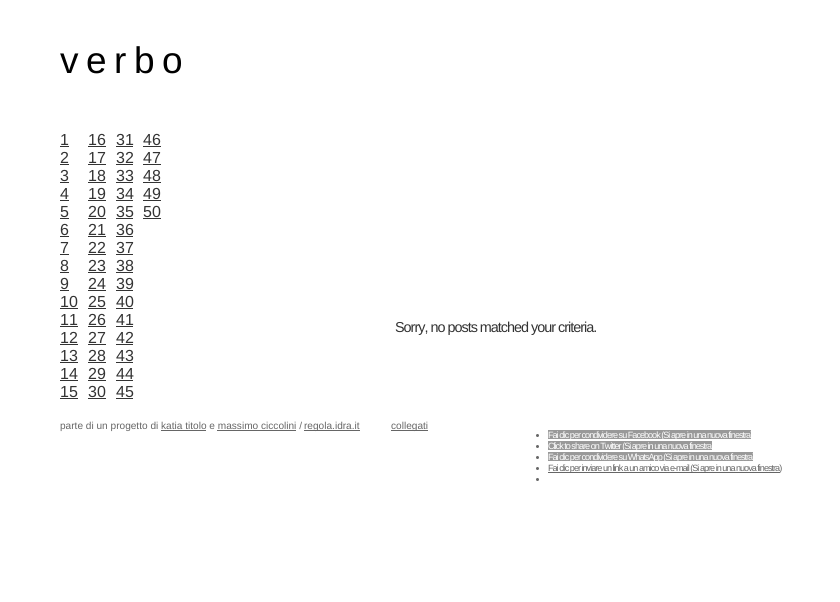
#include <cairo/cairo.h>
#include <math.h>
#include <stddef.h>


static void draw_spaced(cairo_t *cr, double x, double y, const char *s, double letter, double word) {
  cairo_move_to(cr, x, y);
  while (*s) {
    char ch[5] = {0};
    int n = 0;
    do ch[n++] = *s++; while ((*s & 0xC0) == 0x80);
    cairo_show_text(cr, ch);
    cairo_rel_move_to(cr, letter + word * (*ch == ' '), 0);
  }
}

static void draw(cairo_t *cr) {
  cairo_set_source_rgb(cr, 1, 1, 1);
  cairo_paint(cr);
  cairo_set_source_rgb(cr, 51 / 255.0, 51 / 255.0, 51 / 255.0);
  cairo_rectangle(cr, 60, 146, 9, 1);
  cairo_fill(cr);
  cairo_rectangle(cr, 60, 164, 9, 1);
  cairo_fill(cr);
  cairo_rectangle(cr, 60, 182, 9, 1);
  cairo_fill(cr);
  cairo_rectangle(cr, 60, 200, 9, 1);
  cairo_fill(cr);
  cairo_rectangle(cr, 60, 218, 9, 1);
  cairo_fill(cr);
  cairo_rectangle(cr, 60, 236, 9, 1);
  cairo_fill(cr);
  cairo_rectangle(cr, 60, 254, 9, 1);
  cairo_fill(cr);
  cairo_rectangle(cr, 60, 272, 9, 1);
  cairo_fill(cr);
  cairo_rectangle(cr, 60, 290, 9, 1);
  cairo_fill(cr);
  cairo_rectangle(cr, 60, 308, 18, 1);
  cairo_fill(cr);
  cairo_rectangle(cr, 60, 326, 18, 1);
  cairo_fill(cr);
  cairo_rectangle(cr, 60, 344, 18, 1);
  cairo_fill(cr);
  cairo_rectangle(cr, 60, 362, 18, 1);
  cairo_fill(cr);
  cairo_rectangle(cr, 60, 380, 18, 1);
  cairo_fill(cr);
  cairo_rectangle(cr, 60, 398, 18, 1);
  cairo_fill(cr);
  cairo_rectangle(cr, 88, 146, 18, 1);
  cairo_fill(cr);
  cairo_rectangle(cr, 88, 164, 18, 1);
  cairo_fill(cr);
  cairo_rectangle(cr, 88, 182, 18, 1);
  cairo_fill(cr);
  cairo_rectangle(cr, 88, 200, 18, 1);
  cairo_fill(cr);
  cairo_rectangle(cr, 88, 218, 18, 1);
  cairo_fill(cr);
  cairo_rectangle(cr, 88, 236, 18, 1);
  cairo_fill(cr);
  cairo_rectangle(cr, 88, 254, 18, 1);
  cairo_fill(cr);
  cairo_rectangle(cr, 88, 272, 18, 1);
  cairo_fill(cr);
  cairo_rectangle(cr, 88, 290, 18, 1);
  cairo_fill(cr);
  cairo_rectangle(cr, 88, 308, 18, 1);
  cairo_fill(cr);
  cairo_rectangle(cr, 88, 326, 18, 1);
  cairo_fill(cr);
  cairo_rectangle(cr, 88, 344, 18, 1);
  cairo_fill(cr);
  cairo_rectangle(cr, 88, 362, 18, 1);
  cairo_fill(cr);
  cairo_rectangle(cr, 88, 380, 18, 1);
  cairo_fill(cr);
  cairo_rectangle(cr, 88, 398, 18, 1);
  cairo_fill(cr);
  cairo_rectangle(cr, 116, 146, 17, 1);
  cairo_fill(cr);
  cairo_rectangle(cr, 116, 164, 17, 1);
  cairo_fill(cr);
  cairo_rectangle(cr, 116, 182, 17, 1);
  cairo_fill(cr);
  cairo_rectangle(cr, 116, 200, 17, 1);
  cairo_fill(cr);
  cairo_rectangle(cr, 116, 218, 17, 1);
  cairo_fill(cr);
  cairo_rectangle(cr, 116, 236, 17, 1);
  cairo_fill(cr);
  cairo_rectangle(cr, 116, 254, 17, 1);
  cairo_fill(cr);
  cairo_rectangle(cr, 116, 272, 17, 1);
  cairo_fill(cr);
  cairo_rectangle(cr, 116, 290, 17, 1);
  cairo_fill(cr);
  cairo_rectangle(cr, 116, 308, 17, 1);
  cairo_fill(cr);
  cairo_rectangle(cr, 116, 326, 17, 1);
  cairo_fill(cr);
  cairo_rectangle(cr, 116, 344, 17, 1);
  cairo_fill(cr);
  cairo_rectangle(cr, 116, 362, 17, 1);
  cairo_fill(cr);
  cairo_rectangle(cr, 116, 380, 17, 1);
  cairo_fill(cr);
  cairo_rectangle(cr, 116, 398, 17, 1);
  cairo_fill(cr);
  cairo_rectangle(cr, 143, 146, 18, 1);
  cairo_fill(cr);
  cairo_rectangle(cr, 143, 164, 18, 1);
  cairo_fill(cr);
  cairo_rectangle(cr, 143, 182, 18, 1);
  cairo_fill(cr);
  cairo_rectangle(cr, 143, 200, 18, 1);
  cairo_fill(cr);
  cairo_rectangle(cr, 143, 218, 18, 1);
  cairo_fill(cr);
  cairo_set_source_rgb(cr, 102 / 255.0, 102 / 255.0, 102 / 255.0);
  cairo_rectangle(cr, 304, 430, 56, 1);
  cairo_fill(cr);
  cairo_rectangle(cr, 391, 430, 37, 1);
  cairo_fill(cr);
  cairo_rectangle(cr, 161, 430, 45, 1);
  cairo_fill(cr);
  cairo_rectangle(cr, 217, 430, 79, 1);
  cairo_fill(cr);
  cairo_arc(cr, 537.5, 435.5, 1.5, 0, 2 * M_PI);
  cairo_fill(cr);
  cairo_set_source_rgb(cr, 153 / 255.0, 153 / 255.0, 153 / 255.0);
  cairo_rectangle(cr, 548, 430, 203, 9);
  cairo_fill(cr);
  cairo_set_source_rgb(cr, 102 / 255.0, 102 / 255.0, 102 / 255.0);
  cairo_arc(cr, 537.5, 446.5, 1.5, 0, 2 * M_PI);
  cairo_fill(cr);
  cairo_set_source_rgb(cr, 153 / 255.0, 153 / 255.0, 153 / 255.0);
  cairo_rectangle(cr, 548, 441, 164, 9);
  cairo_fill(cr);
  cairo_set_source_rgb(cr, 102 / 255.0, 102 / 255.0, 102 / 255.0);
  cairo_arc(cr, 537.5, 457.5, 1.5, 0, 2 * M_PI);
  cairo_fill(cr);
  cairo_set_source_rgb(cr, 153 / 255.0, 153 / 255.0, 153 / 255.0);
  cairo_rectangle(cr, 548, 452, 205, 9);
  cairo_fill(cr);
  cairo_set_source_rgb(cr, 102 / 255.0, 102 / 255.0, 102 / 255.0);
  cairo_arc(cr, 537.5, 468.5, 1.5, 0, 2 * M_PI);
  cairo_fill(cr);
  cairo_rectangle(cr, 548, 472, 232, 1);
  cairo_fill(cr);
  cairo_arc(cr, 537.5, 479.5, 1.5, 0, 2 * M_PI);
  cairo_fill(cr);
  cairo_select_font_face(cr, "Liberation Sans", CAIRO_FONT_SLANT_NORMAL, CAIRO_FONT_WEIGHT_NORMAL);
  cairo_set_font_size(cr, 37);
  cairo_set_source_rgb(cr, 0, 0, 0);
  draw_spaced(cr, 60, 73, "verbo", 7.5, 0);
  cairo_set_font_size(cr, 16);
  cairo_set_source_rgb(cr, 51 / 255.0, 51 / 255.0, 51 / 255.0);
  cairo_move_to(cr, 60, 145);
  cairo_show_text(cr, "1");
  cairo_move_to(cr, 60, 163);
  cairo_show_text(cr, "2");
  cairo_move_to(cr, 60, 181);
  cairo_show_text(cr, "3");
  cairo_move_to(cr, 60, 199);
  cairo_show_text(cr, "4");
  cairo_move_to(cr, 60, 217);
  cairo_show_text(cr, "5");
  cairo_move_to(cr, 60, 235);
  cairo_show_text(cr, "6");
  cairo_move_to(cr, 60, 253);
  cairo_show_text(cr, "7");
  cairo_move_to(cr, 60, 271);
  cairo_show_text(cr, "8");
  cairo_move_to(cr, 60, 289);
  cairo_show_text(cr, "9");
  cairo_move_to(cr, 60, 307);
  cairo_show_text(cr, "10");
  cairo_move_to(cr, 60, 325);
  cairo_show_text(cr, "11");
  cairo_move_to(cr, 60, 343);
  cairo_show_text(cr, "12");
  cairo_move_to(cr, 60, 361);
  cairo_show_text(cr, "13");
  cairo_move_to(cr, 60, 379);
  cairo_show_text(cr, "14");
  cairo_move_to(cr, 60, 397);
  cairo_show_text(cr, "15");
  cairo_move_to(cr, 88, 145);
  cairo_show_text(cr, "16");
  cairo_move_to(cr, 88, 163);
  cairo_show_text(cr, "17");
  cairo_move_to(cr, 88, 181);
  cairo_show_text(cr, "18");
  cairo_move_to(cr, 88, 199);
  cairo_show_text(cr, "19");
  cairo_move_to(cr, 88, 217);
  cairo_show_text(cr, "20");
  cairo_move_to(cr, 88, 235);
  cairo_show_text(cr, "21");
  cairo_move_to(cr, 88, 253);
  cairo_show_text(cr, "22");
  cairo_move_to(cr, 88, 271);
  cairo_show_text(cr, "23");
  cairo_move_to(cr, 88, 289);
  cairo_show_text(cr, "24");
  cairo_move_to(cr, 88, 307);
  cairo_show_text(cr, "25");
  cairo_move_to(cr, 88, 325);
  cairo_show_text(cr, "26");
  cairo_move_to(cr, 88, 343);
  cairo_show_text(cr, "27");
  cairo_move_to(cr, 88, 361);
  cairo_show_text(cr, "28");
  cairo_move_to(cr, 88, 379);
  cairo_show_text(cr, "29");
  cairo_move_to(cr, 88, 397);
  cairo_show_text(cr, "30");
  cairo_move_to(cr, 116, 145);
  cairo_show_text(cr, "31");
  cairo_move_to(cr, 116, 163);
  cairo_show_text(cr, "32");
  cairo_move_to(cr, 116, 181);
  cairo_show_text(cr, "33");
  cairo_move_to(cr, 116, 199);
  cairo_show_text(cr, "34");
  cairo_move_to(cr, 116, 217);
  cairo_show_text(cr, "35");
  cairo_move_to(cr, 116, 235);
  cairo_show_text(cr, "36");
  cairo_move_to(cr, 116, 253);
  cairo_show_text(cr, "37");
  cairo_move_to(cr, 116, 271);
  cairo_show_text(cr, "38");
  cairo_move_to(cr, 116, 289);
  cairo_show_text(cr, "39");
  cairo_move_to(cr, 116, 307);
  cairo_show_text(cr, "40");
  cairo_move_to(cr, 116, 325);
  cairo_show_text(cr, "41");
  cairo_move_to(cr, 116, 343);
  cairo_show_text(cr, "42");
  cairo_move_to(cr, 116, 361);
  cairo_show_text(cr, "43");
  cairo_move_to(cr, 116, 379);
  cairo_show_text(cr, "44");
  cairo_move_to(cr, 116, 397);
  cairo_show_text(cr, "45");
  cairo_move_to(cr, 143, 145);
  cairo_show_text(cr, "46");
  cairo_move_to(cr, 143, 163);
  cairo_show_text(cr, "47");
  cairo_move_to(cr, 143, 181);
  cairo_show_text(cr, "48");
  cairo_move_to(cr, 143, 199);
  cairo_show_text(cr, "49");
  cairo_move_to(cr, 143, 217);
  cairo_show_text(cr, "50");
  cairo_set_font_size(cr, 14.4);
  draw_spaced(cr, 395, 332, "Sorry, no posts matched your criteria.", -1, 0);
  cairo_set_font_size(cr, 10.1);
  cairo_set_source_rgb(cr, 102 / 255.0, 102 / 255.0, 102 / 255.0);
  cairo_move_to(cr, 60, 429);
  cairo_show_text(cr, "parte di un progetto di katia titolo e massimo ciccolini /");
  cairo_move_to(cr, 304, 429);
  cairo_show_text(cr, "regola.idra.it");
  cairo_move_to(cr, 391, 429);
  cairo_show_text(cr, "collegati");
  cairo_set_font_size(cr, 9.1);
  cairo_set_source_rgb(cr, 1, 1, 1);
  draw_spaced(cr, 548, 438, "Fai clic per condividere su Facebook (Si apre in una nuova finestra)", -1, 0);
  draw_spaced(cr, 548, 449, "Click to share on Twitter (Si apre in una nuova finestra", -1, 0);
  draw_spaced(cr, 548, 460, "Fai clic per condividere su WhatsApp (Si apre in una nuova finestra)", -1, 0);
  cairo_set_source_rgb(cr, 102 / 255.0, 102 / 255.0, 102 / 255.0);
  draw_spaced(cr, 548, 471, "Fai clic per inviare un link a un amico via e-mail (Si apre in una nuova finestra)", -1, 0);
}

int main(void) {
  cairo_surface_t *surface = cairo_image_surface_create(CAIRO_FORMAT_RGB24, 840, 602);
  cairo_t *cr = cairo_create(surface);
  cairo_font_options_t *options = cairo_font_options_create();
  cairo_font_options_set_hint_metrics(options, CAIRO_HINT_METRICS_OFF);
  cairo_font_options_set_hint_style(options, CAIRO_HINT_STYLE_NONE);
  cairo_set_font_options(cr, options);
  cairo_set_miter_limit(cr, 4);
  draw(cr);
  cairo_surface_write_to_png(surface, "out.png");
  cairo_font_options_destroy(options);
  cairo_destroy(cr);
  cairo_surface_destroy(surface);
  return 0;
}
